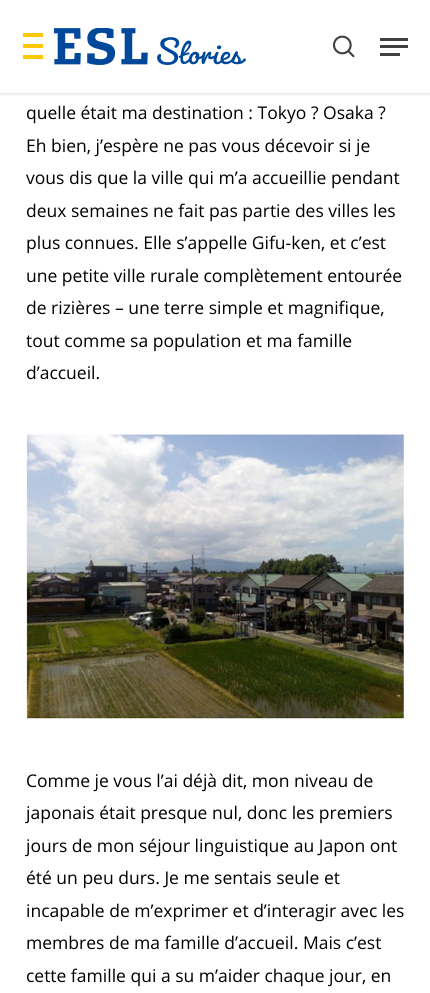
#include <cairo/cairo.h>
#include <math.h>
#include <stddef.h>


static void rounded_rect(cairo_t *cr, double x, double y, double w, double h, double r) {
  cairo_new_sub_path(cr);
  cairo_arc(cr, x + w - r, y + h - r, r, 0, M_PI / 2);
  cairo_arc(cr, x + r, y + h - r, r, M_PI / 2, M_PI);
  cairo_arc(cr, x + r, y + r, r, M_PI, 1.5 * M_PI);
  cairo_arc(cr, x + w - r, y + r, r, 1.5 * M_PI, 2 * M_PI);
  cairo_close_path(cr);
}

static void draw_shadow(cairo_t *cr, double x, double y, double w, double h, double r, double blur, double alpha) {
  cairo_push_group_with_content(cr, CAIRO_CONTENT_ALPHA);
  cairo_set_operator(cr, CAIRO_OPERATOR_SOURCE);
  for (int i = 15; i >= -15 && fmin(w, h) + blur * i / 3 > 0; i -= 2) {
    double e = blur * i / 6;
    cairo_set_source_rgba(cr, 0, 0, 0, alpha * erfc((i - 1) / 8.5) / 2);
    rounded_rect(cr, x - e, y - e, w + 2 * e, h + 2 * e, fmax(0, fmin(r + e + blur * .6, fmin(w, h) / 2 + e)));
    cairo_fill(cr);
  }
  cairo_pattern_t *soft = cairo_pop_group(cr);
  cairo_mask(cr, soft);
  cairo_pattern_destroy(soft);
}

static void draw_image(cairo_t *cr, const char *path, double x, double y, double w, double h) {
  cairo_surface_t *image = cairo_image_surface_create_from_png(path);
  cairo_save(cr);
  cairo_set_source_surface(cr, image, x, y);
  cairo_rectangle(cr, x, y, w, h);
  cairo_fill(cr);
  cairo_restore(cr);
  cairo_surface_destroy(image);
}

static void draw(cairo_t *cr) {
  cairo_set_source_rgb(cr, 1, 1, 1);
  cairo_paint(cr);
  cairo_set_source_rgb(cr, 0, 0, 0);
  draw_shadow(cr, 0, 0, 430, 93, 0, 2, 0.22);
  cairo_set_source_rgb(cr, 1, 1, 1);
  cairo_rectangle(cr, 0, 0, 430, 93);
  cairo_fill(cr);
  draw_image(cr, "images/1.png", 23, 28, 223, 37);
  draw_image(cr, "images/2.png", 333, 35, 22, 23);
  cairo_set_source_rgb(cr, 64 / 255.0, 64 / 255.0, 64 / 255.0);
  cairo_rectangle(cr, 380, 38, 28, 3);
  cairo_fill(cr);
  cairo_rectangle(cr, 380, 53, 20, 3);
  cairo_fill(cr);
  cairo_rectangle(cr, 380, 45, 28, 3);
  cairo_fill(cr);
  draw_image(cr, "images/3.png", 26, 434, 378, 285);
  cairo_select_font_face(cr, "Open Sans", CAIRO_FONT_SLANT_NORMAL, CAIRO_FONT_WEIGHT_NORMAL);
  cairo_set_font_size(cr, 17.5);
  cairo_set_source_rgb(cr, 0, 0, 0);
  cairo_move_to(cr, 26, 119);
  cairo_show_text(cr, "quelle était ma destination : Tokyo ? Osaka ?");
  cairo_move_to(cr, 26, 152);
  cairo_show_text(cr, "Eh bien, j’espère ne pas vous décevoir si je");
  cairo_move_to(cr, 26, 184);
  cairo_show_text(cr, "vous dis que la ville qui m’a accueillie pendant");
  cairo_move_to(cr, 26, 217);
  cairo_show_text(cr, "deux semaines ne fait pas partie des villes les");
  cairo_move_to(cr, 26, 249);
  cairo_show_text(cr, "plus connues. Elle s’appelle Gifu-ken, et c’est");
  cairo_move_to(cr, 26, 282);
  cairo_show_text(cr, "une petite ville rurale complètement entourée");
  cairo_move_to(cr, 26, 314);
  cairo_show_text(cr, "de rizières – une terre simple et magnifique,");
  cairo_move_to(cr, 26, 347);
  cairo_show_text(cr, "tout comme sa population et ma famille");
  cairo_move_to(cr, 26, 379);
  cairo_show_text(cr, "d’accueil.");
  cairo_move_to(cr, 26, 787);
  cairo_show_text(cr, "Comme je vous l’ai déjà dit, mon niveau de");
  cairo_move_to(cr, 26, 819);
  cairo_show_text(cr, "japonais était presque nul, donc les premiers");
  cairo_move_to(cr, 26, 852);
  cairo_show_text(cr, "jours de mon séjour linguistique au Japon ont");
  cairo_move_to(cr, 26, 884);
  cairo_show_text(cr, "été un peu durs. Je me sentais seule et");
  cairo_move_to(cr, 26, 917);
  cairo_show_text(cr, "incapable de m’exprimer et d’interagir avec les");
  cairo_move_to(cr, 26, 949);
  cairo_show_text(cr, "membres de ma famille d’accueil. Mais c’est");
  cairo_move_to(cr, 26, 982);
  cairo_show_text(cr, "cette famille qui a su m’aider chaque jour, en");
}

int main(void) {
  cairo_surface_t *surface = cairo_image_surface_create(CAIRO_FORMAT_RGB24, 430, 993);
  cairo_t *cr = cairo_create(surface);
  cairo_font_options_t *options = cairo_font_options_create();
  cairo_font_options_set_hint_metrics(options, CAIRO_HINT_METRICS_OFF);
  cairo_font_options_set_hint_style(options, CAIRO_HINT_STYLE_NONE);
  cairo_set_font_options(cr, options);
  cairo_set_miter_limit(cr, 4);
  draw(cr);
  cairo_surface_write_to_png(surface, "out.png");
  cairo_font_options_destroy(options);
  cairo_destroy(cr);
  cairo_surface_destroy(surface);
  return 0;
}
